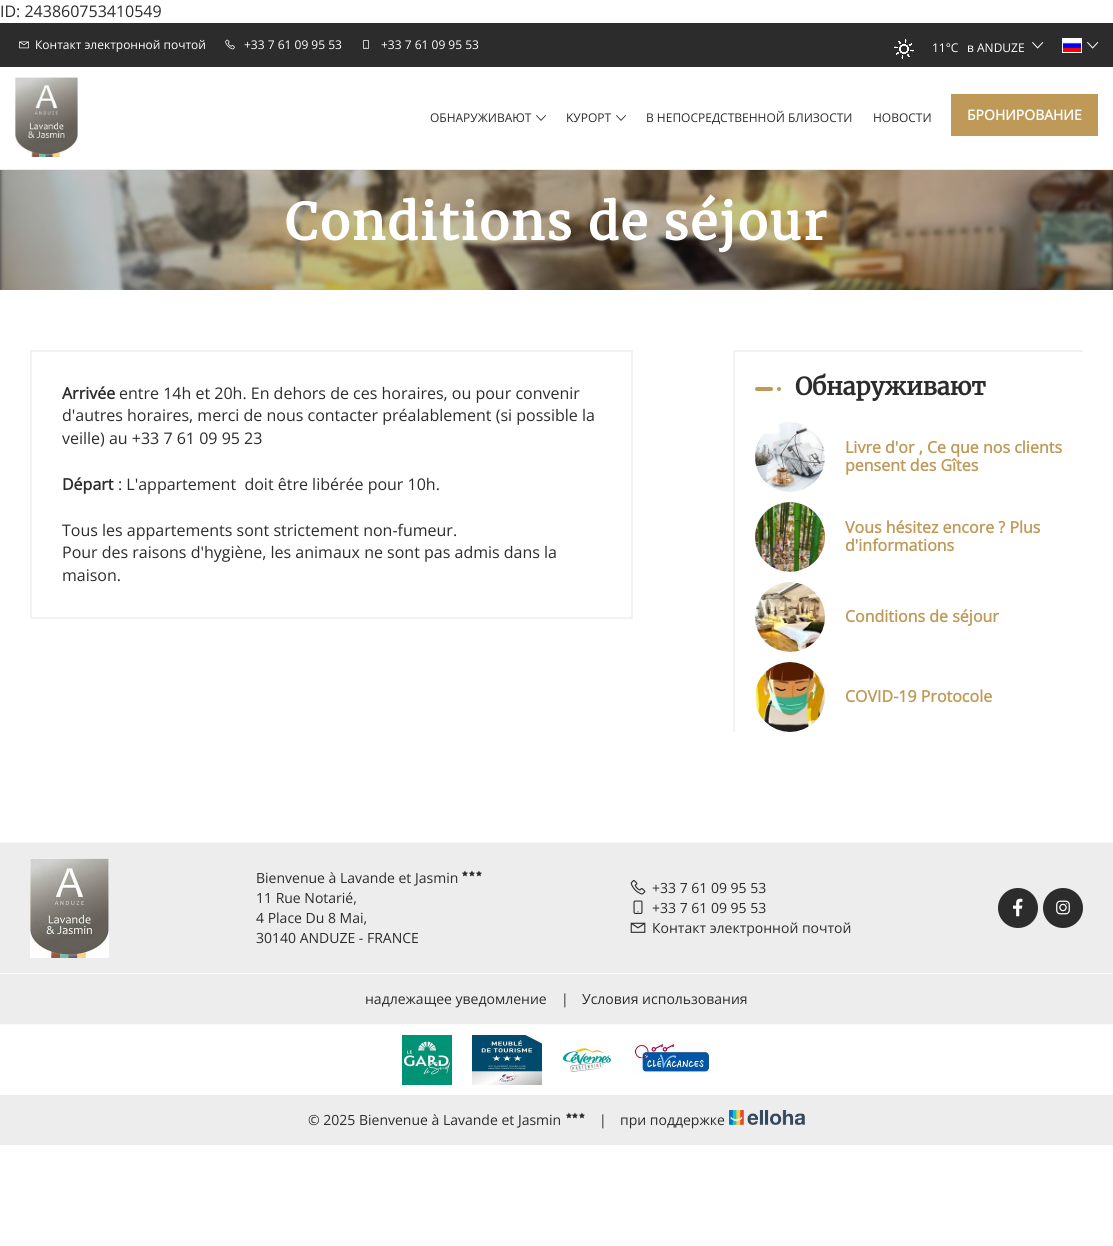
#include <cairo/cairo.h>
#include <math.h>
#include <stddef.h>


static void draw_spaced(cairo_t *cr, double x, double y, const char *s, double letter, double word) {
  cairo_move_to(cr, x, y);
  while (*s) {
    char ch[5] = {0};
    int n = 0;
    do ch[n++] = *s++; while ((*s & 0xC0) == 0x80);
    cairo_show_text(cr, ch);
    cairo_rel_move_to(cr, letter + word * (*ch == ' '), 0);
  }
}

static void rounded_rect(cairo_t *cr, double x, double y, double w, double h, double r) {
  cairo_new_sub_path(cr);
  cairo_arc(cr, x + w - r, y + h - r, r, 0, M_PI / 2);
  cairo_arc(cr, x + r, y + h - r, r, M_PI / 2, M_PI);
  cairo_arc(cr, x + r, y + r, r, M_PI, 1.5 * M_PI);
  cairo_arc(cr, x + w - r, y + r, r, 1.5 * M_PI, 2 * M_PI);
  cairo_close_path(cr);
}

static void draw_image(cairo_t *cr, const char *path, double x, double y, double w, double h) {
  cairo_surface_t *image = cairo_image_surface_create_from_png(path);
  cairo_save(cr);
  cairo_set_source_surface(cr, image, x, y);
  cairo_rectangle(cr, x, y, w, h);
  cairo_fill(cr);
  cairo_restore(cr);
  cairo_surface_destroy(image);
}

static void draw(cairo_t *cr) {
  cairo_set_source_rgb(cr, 1, 1, 1);
  cairo_paint(cr);
  cairo_set_source_rgb(cr, 44 / 255.0, 44 / 255.0, 44 / 255.0);
  cairo_rectangle(cr, 0, 23, 1113, 44);
  cairo_fill(cr);
  draw_image(cr, "images/1.png", 19, 41, 10, 8);
  draw_image(cr, "images/2.png", 225, 39, 10, 11);
  draw_image(cr, "images/3.png", 363, 40, 6, 9);
  draw_image(cr, "images/4.png", 894, 39, 20, 20);
  draw_image(cr, "images/5.png", 1032, 42, 12, 7);
  cairo_rectangle(cr, 1062.5, 38.5, 19, 14);
  cairo_set_source_rgb(cr, 1, 1, 1);
  cairo_set_line_width(cr, 1);
  cairo_stroke(cr);
  draw_image(cr, "images/6.png", 1063, 39, 18, 13);
  draw_image(cr, "images/5.png", 1087, 42, 12, 7);
  cairo_set_source_rgb(cr, 237 / 255.0, 237 / 255.0, 237 / 255.0);
  cairo_rectangle(cr, 0, 169, 1113, 1);
  cairo_fill(cr);
  draw_image(cr, "images/7.png", 15, 77, 63, 80);
  draw_image(cr, "images/8.png", 536, 115, 10, 6);
  draw_image(cr, "images/8.png", 616, 115, 10, 6);
  cairo_set_source_rgb(cr, 191 / 255.0, 153 / 255.0, 88 / 255.0);
  cairo_rectangle(cr, 951, 94, 147, 42);
  cairo_fill(cr);
  cairo_set_source_rgb(cr, 44 / 255.0, 44 / 255.0, 44 / 255.0);
  cairo_rectangle(cr, 0, 170, 1113, 120);
  cairo_fill(cr);
  draw_image(cr, "images/9.png", 0, 170, 1113, 120);
  cairo_rectangle(cr, 31, 351, 601, 267);
  cairo_set_source_rgb(cr, 242 / 255.0, 242 / 255.0, 242 / 255.0);
  cairo_set_line_width(cr, 2);
  cairo_stroke(cr);
  cairo_new_path(cr);
  cairo_move_to(cr, 733, 350);
  cairo_line_to(cr, 1083, 350);
  cairo_line_to(cr, 1083, 352);
  cairo_line_to(cr, 735, 352);
  cairo_close_path(cr);
  cairo_fill(cr);
  cairo_set_source_rgba(cr, 0, 0, 0, 0.05);
  cairo_new_path(cr);
  cairo_move_to(cr, 733, 732);
  cairo_line_to(cr, 733, 350);
  cairo_line_to(cr, 735, 352);
  cairo_line_to(cr, 735, 732);
  cairo_close_path(cr);
  cairo_fill(cr);
  cairo_set_source_rgb(cr, 191 / 255.0, 153 / 255.0, 88 / 255.0);
  rounded_rect(cr, 755, 387, 18, 4, 2);
  cairo_fill(cr);
  cairo_arc(cr, 779, 389, 2, 0, 2 * M_PI);
  cairo_fill(cr);
  draw_image(cr, "images/10.png", 755, 422, 70, 70);
  draw_image(cr, "images/11.png", 755, 502, 70, 70);
  draw_image(cr, "images/12.png", 755, 582, 70, 70);
  draw_image(cr, "images/13.png", 755, 662, 70, 70);
  cairo_set_source_rgb(cr, 237 / 255.0, 237 / 255.0, 237 / 255.0);
  cairo_rectangle(cr, 0, 843, 1113, 130);
  cairo_fill(cr);
  cairo_set_source_rgb(cr, 250 / 255.0, 250 / 255.0, 250 / 255.0);
  cairo_rectangle(cr, 0, 842, 1113, 1);
  cairo_fill(cr);
  cairo_rectangle(cr, 0, 973, 1113, 1);
  cairo_fill(cr);
  draw_image(cr, "images/14.png", 30, 858, 79, 100);
  draw_image(cr, "images/15.png", 462, 870, 6, 7);
  draw_image(cr, "images/15.png", 469, 870, 6, 7);
  draw_image(cr, "images/15.png", 476, 870, 6, 7);
  draw_image(cr, "images/16.png", 630, 880, 16, 15);
  draw_image(cr, "images/17.png", 633, 900, 10, 14);
  draw_image(cr, "images/18.png", 630, 922, 16, 11);
  cairo_set_source_rgb(cr, 44 / 255.0, 44 / 255.0, 44 / 255.0);
  cairo_arc(cr, 1018, 908, 20, 0, 2 * M_PI);
  cairo_fill(cr);
  draw_image(cr, "images/19.png", 1013, 898, 10, 19);
  cairo_arc(cr, 1063, 908, 20, 0, 2 * M_PI);
  cairo_fill(cr);
  draw_image(cr, "images/20.png", 1056, 900, 14, 15);
  cairo_set_source_rgb(cr, 237 / 255.0, 237 / 255.0, 237 / 255.0);
  cairo_rectangle(cr, 0, 974, 1113, 50);
  cairo_fill(cr);
  cairo_set_source_rgb(cr, 250 / 255.0, 250 / 255.0, 250 / 255.0);
  cairo_rectangle(cr, 0, 1024, 1113, 1);
  cairo_fill(cr);
  draw_image(cr, "images/21.png", 402, 1035, 50, 50);
  draw_image(cr, "images/22.png", 472, 1035, 70, 50);
  draw_image(cr, "images/23.png", 562, 1047, 50, 25);
  draw_image(cr, "images/24.png", 632, 1042, 78, 31);
  cairo_set_source_rgb(cr, 237 / 255.0, 237 / 255.0, 237 / 255.0);
  cairo_rectangle(cr, 0, 1095, 1113, 50);
  cairo_fill(cr);
  draw_image(cr, "images/15.png", 566, 1112, 6, 7);
  draw_image(cr, "images/15.png", 572, 1112, 6, 7);
  draw_image(cr, "images/15.png", 579, 1112, 6, 7);
  draw_image(cr, "images/25.png", 729, 1110, 76, 15);
  cairo_select_font_face(cr, "Open Sans", CAIRO_FONT_SLANT_NORMAL, CAIRO_FONT_WEIGHT_NORMAL);
  cairo_set_font_size(cr, 16);
  cairo_set_source_rgb(cr, 44 / 255.0, 44 / 255.0, 44 / 255.0);
  cairo_move_to(cr, 0, 17);
  cairo_show_text(cr, "ID: 243860753410549");
  cairo_set_font_size(cr, 12);
  cairo_set_source_rgb(cr, 1, 1, 1);
  cairo_move_to(cr, 35, 49);
  cairo_show_text(cr, "Контакт электронной почтой");
  cairo_move_to(cr, 244, 49);
  cairo_show_text(cr, "+33 7 61 09 95 53");
  cairo_move_to(cr, 381, 49);
  cairo_show_text(cr, "+33 7 61 09 95 53");
  cairo_move_to(cr, 932, 52);
  cairo_show_text(cr, "11°C");
  cairo_move_to(cr, 967, 52);
  cairo_show_text(cr, "в ANDUZE");
  cairo_set_source_rgb(cr, 44 / 255.0, 44 / 255.0, 44 / 255.0);
  cairo_move_to(cr, 430, 122);
  cairo_show_text(cr, "ОБНАРУЖИВАЮТ");
  cairo_move_to(cr, 566, 122);
  cairo_show_text(cr, "KУРОРТ");
  cairo_move_to(cr, 646, 122);
  cairo_show_text(cr, "В НЕПОСРЕДСТВЕННОЙ БЛИЗОСТИ");
  cairo_move_to(cr, 873, 122);
  cairo_show_text(cr, "HОВОСТИ");
  cairo_select_font_face(cr, "Open Sans", CAIRO_FONT_SLANT_NORMAL, CAIRO_FONT_WEIGHT_BOLD);
  cairo_set_font_size(cr, 14);
  cairo_set_source_rgb(cr, 1, 1, 1);
  cairo_move_to(cr, 967, 120);
  cairo_show_text(cr, "БРОНИРОВАНИЕ");
  cairo_select_font_face(cr, "Merriweather", CAIRO_FONT_SLANT_NORMAL, CAIRO_FONT_WEIGHT_BOLD);
  cairo_set_font_size(cr, 50);
  draw_spaced(cr, 285, 240, "Conditions de séjour", 2.5, 0);
  cairo_select_font_face(cr, "Open Sans", CAIRO_FONT_SLANT_NORMAL, CAIRO_FONT_WEIGHT_BOLD);
  cairo_set_font_size(cr, 16);
  cairo_set_source_rgb(cr, 44 / 255.0, 44 / 255.0, 44 / 255.0);
  cairo_move_to(cr, 62, 399);
  cairo_show_text(cr, "Arrivée");
  cairo_select_font_face(cr, "Open Sans", CAIRO_FONT_SLANT_NORMAL, CAIRO_FONT_WEIGHT_NORMAL);
  cairo_move_to(cr, 119, 399);
  cairo_show_text(cr, "entre 14h et 20h. En dehors de ces horaires, ou pour convenir");
  cairo_move_to(cr, 62, 421);
  cairo_show_text(cr, "d'autres horaires, merci de nous contacter préalablement (si possible la");
  cairo_move_to(cr, 62, 444);
  cairo_show_text(cr, "veille) au +33 7 61 09 95 23");
  cairo_select_font_face(cr, "Open Sans", CAIRO_FONT_SLANT_NORMAL, CAIRO_FONT_WEIGHT_BOLD);
  cairo_move_to(cr, 62, 490);
  cairo_show_text(cr, "Départ");
  cairo_select_font_face(cr, "Open Sans", CAIRO_FONT_SLANT_NORMAL, CAIRO_FONT_WEIGHT_NORMAL);
  cairo_move_to(cr, 118, 490);
  cairo_show_text(cr, ": L'appartement  doit être libérée pour 10h.");
  cairo_move_to(cr, 62, 536);
  cairo_show_text(cr, "Tous les appartements sont strictement non-fumeur.");
  cairo_move_to(cr, 62, 558);
  cairo_show_text(cr, "Pour des raisons d'hygiène, les animaux ne sont pas admis dans la");
  cairo_move_to(cr, 62, 581);
  cairo_show_text(cr, "maison.");
  cairo_select_font_face(cr, "Merriweather", CAIRO_FONT_SLANT_NORMAL, CAIRO_FONT_WEIGHT_BOLD);
  cairo_set_font_size(cr, 24);
  cairo_move_to(cr, 795, 395);
  cairo_show_text(cr, "Обнаруживают");
  cairo_select_font_face(cr, "Open Sans", CAIRO_FONT_SLANT_NORMAL, CAIRO_FONT_WEIGHT_BOLD);
  cairo_set_font_size(cr, 16);
  cairo_set_source_rgb(cr, 191 / 255.0, 153 / 255.0, 88 / 255.0);
  cairo_move_to(cr, 845, 453);
  cairo_show_text(cr, "Livre d'or , Ce que nos clients");
  cairo_move_to(cr, 845, 471);
  cairo_show_text(cr, "pensent des Gîtes");
  cairo_move_to(cr, 845, 533);
  cairo_show_text(cr, "Vous hésitez encore ? Plus");
  cairo_move_to(cr, 845, 551);
  cairo_show_text(cr, "d'informations");
  cairo_move_to(cr, 845, 622);
  cairo_show_text(cr, "Conditions de séjour");
  cairo_move_to(cr, 845, 702);
  cairo_show_text(cr, "COVID-19 Protocole");
  cairo_select_font_face(cr, "Open Sans", CAIRO_FONT_SLANT_NORMAL, CAIRO_FONT_WEIGHT_NORMAL);
  cairo_set_font_size(cr, 14);
  cairo_set_source_rgb(cr, 44 / 255.0, 44 / 255.0, 44 / 255.0);
  cairo_move_to(cr, 256, 883);
  cairo_show_text(cr, "Bienvenue à Lavande et Jasmin");
  cairo_move_to(cr, 256, 903);
  cairo_show_text(cr, "11 Rue Notarié,");
  cairo_move_to(cr, 256, 923);
  cairo_show_text(cr, "4 Place Du 8 Mai,");
  cairo_move_to(cr, 256, 943);
  cairo_show_text(cr, "30140 ANDUZE - FRANCE");
  cairo_move_to(cr, 652, 893);
  cairo_show_text(cr, "+33 7 61 09 95 53");
  cairo_move_to(cr, 652, 913);
  cairo_show_text(cr, "+33 7 61 09 95 53");
  cairo_move_to(cr, 652, 933);
  cairo_show_text(cr, "Контакт электронной почтой");
  cairo_move_to(cr, 365, 1004);
  cairo_show_text(cr, "надлежащее уведомление");
  cairo_move_to(cr, 561, 1004);
  cairo_show_text(cr, "|");
  cairo_move_to(cr, 582, 1004);
  cairo_show_text(cr, "Условия использования");
  cairo_move_to(cr, 308, 1125);
  cairo_show_text(cr, "© 2025 Bienvenue à Lavande et Jasmin");
  cairo_move_to(cr, 599, 1125);
  cairo_show_text(cr, "|");
  cairo_move_to(cr, 620, 1125);
  cairo_show_text(cr, "при поддержке");
}

int main(void) {
  cairo_surface_t *surface = cairo_image_surface_create(CAIRO_FORMAT_RGB24, 1113, 1246);
  cairo_t *cr = cairo_create(surface);
  cairo_font_options_t *options = cairo_font_options_create();
  cairo_font_options_set_hint_metrics(options, CAIRO_HINT_METRICS_OFF);
  cairo_font_options_set_hint_style(options, CAIRO_HINT_STYLE_NONE);
  cairo_set_font_options(cr, options);
  cairo_set_miter_limit(cr, 4);
  draw(cr);
  cairo_surface_write_to_png(surface, "out.png");
  cairo_font_options_destroy(options);
  cairo_destroy(cr);
  cairo_surface_destroy(surface);
  return 0;
}
